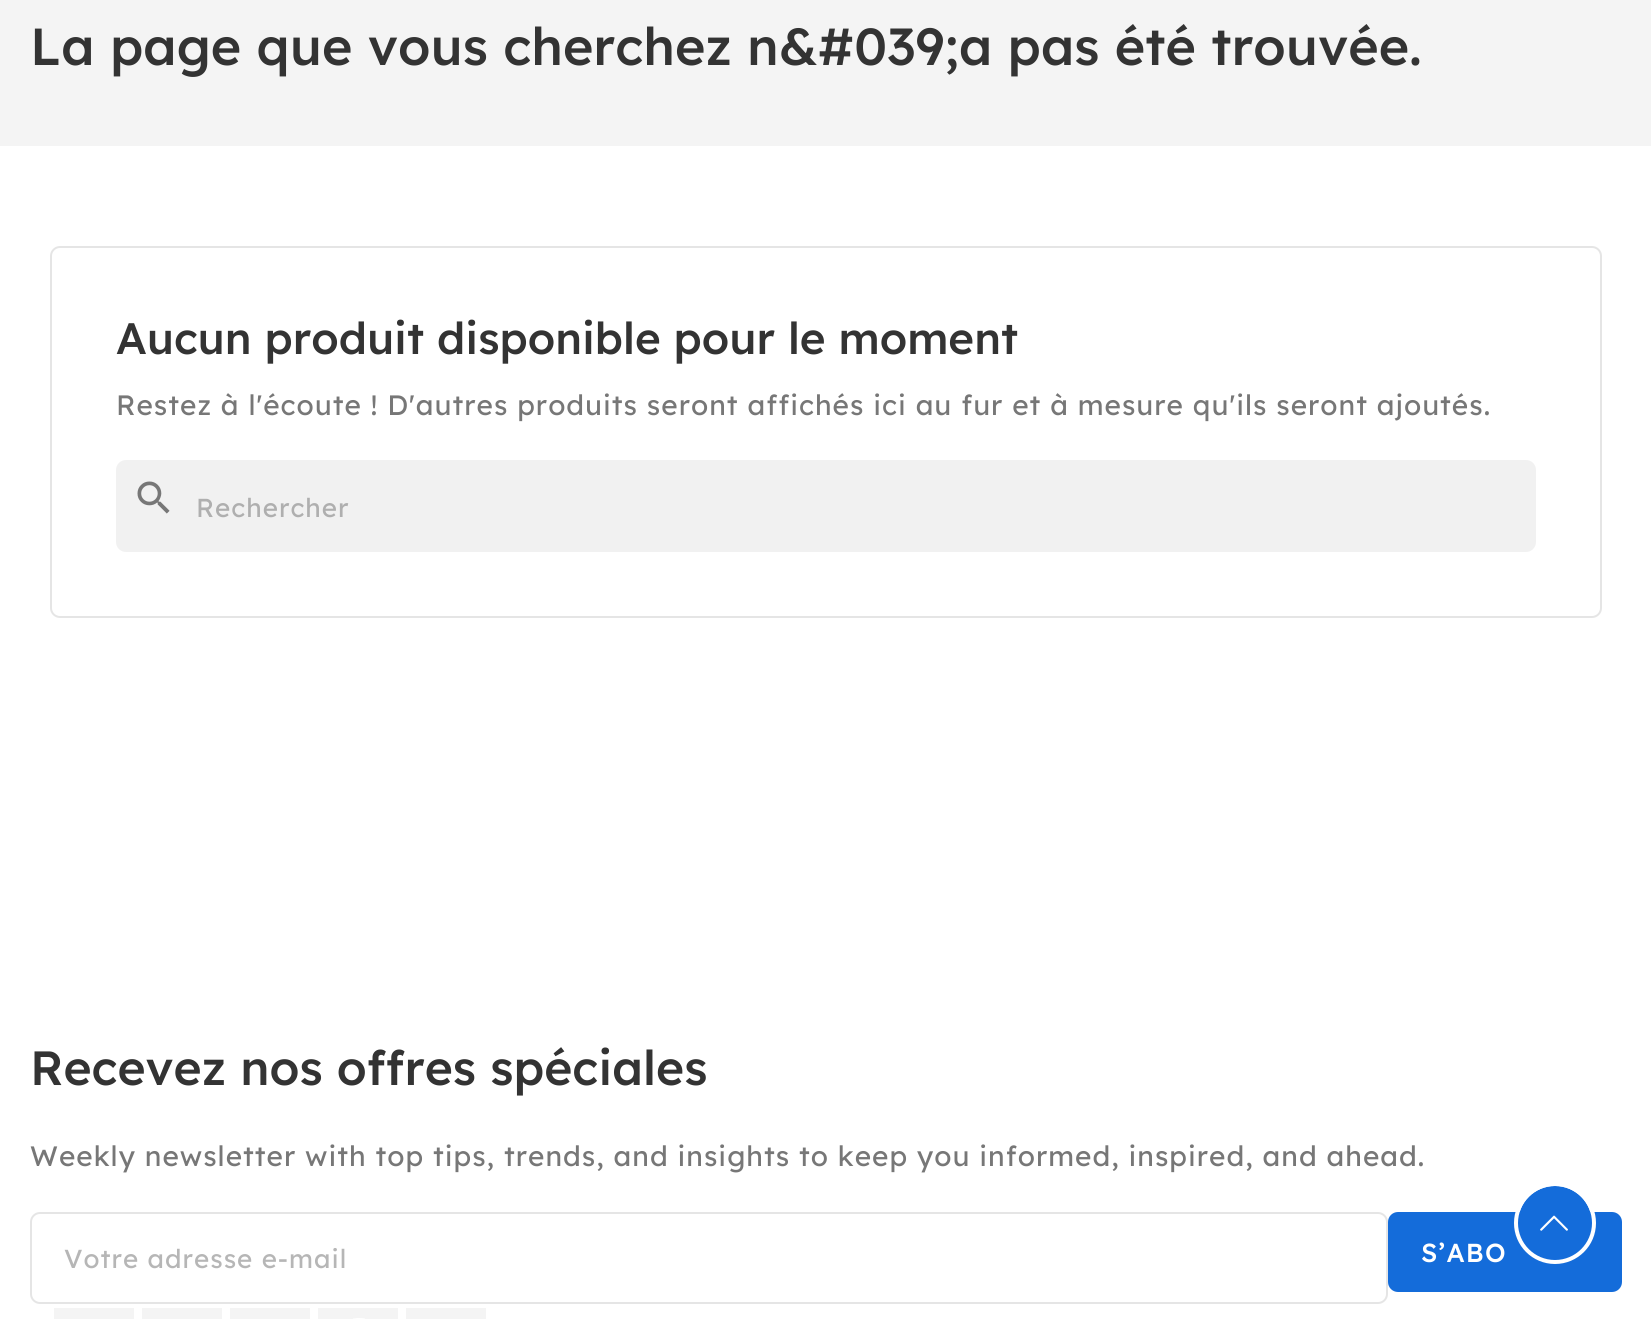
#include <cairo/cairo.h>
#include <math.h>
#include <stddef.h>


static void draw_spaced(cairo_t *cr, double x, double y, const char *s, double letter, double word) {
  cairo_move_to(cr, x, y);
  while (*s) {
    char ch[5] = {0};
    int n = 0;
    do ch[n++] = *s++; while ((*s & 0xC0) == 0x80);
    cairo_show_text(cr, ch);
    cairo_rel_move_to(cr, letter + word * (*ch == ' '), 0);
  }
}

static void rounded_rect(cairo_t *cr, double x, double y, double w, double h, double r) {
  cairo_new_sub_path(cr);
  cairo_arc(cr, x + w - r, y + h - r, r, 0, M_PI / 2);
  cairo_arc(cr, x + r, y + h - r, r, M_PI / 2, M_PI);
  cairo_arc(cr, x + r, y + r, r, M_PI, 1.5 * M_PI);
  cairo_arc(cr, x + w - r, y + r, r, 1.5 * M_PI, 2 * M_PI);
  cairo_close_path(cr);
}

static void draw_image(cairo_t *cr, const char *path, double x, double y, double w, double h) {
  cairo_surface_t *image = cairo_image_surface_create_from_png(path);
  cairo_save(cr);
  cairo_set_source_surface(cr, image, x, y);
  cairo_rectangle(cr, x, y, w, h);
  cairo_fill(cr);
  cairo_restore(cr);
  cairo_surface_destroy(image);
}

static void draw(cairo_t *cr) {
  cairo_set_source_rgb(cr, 1, 1, 1);
  cairo_paint(cr);
  cairo_set_source_rgb(cr, 244 / 255.0, 244 / 255.0, 244 / 255.0);
  cairo_rectangle(cr, 0, 0, 1651, 146);
  cairo_fill(cr);
  rounded_rect(cr, 51, 247, 1550, 370, 9);
  cairo_set_source_rgb(cr, 229 / 255.0, 229 / 255.0, 229 / 255.0);
  cairo_stroke(cr);
  cairo_set_source_rgb(cr, 241 / 255.0, 241 / 255.0, 241 / 255.0);
  rounded_rect(cr, 116, 460, 1420, 92, 10);
  cairo_fill(cr);
  draw_image(cr, "images/1.png", 137, 481, 33, 33);
  rounded_rect(cr, 31, 1213, 1356, 90, 9);
  cairo_set_source_rgb(cr, 229 / 255.0, 229 / 255.0, 229 / 255.0);
  cairo_stroke(cr);
  cairo_set_source_rgb(cr, 20 / 255.0, 108 / 255.0, 218 / 255.0);
  rounded_rect(cr, 1388, 1212, 234, 80, 10);
  cairo_fill(cr);
  cairo_set_source_rgb(cr, 244 / 255.0, 244 / 255.0, 244 / 255.0);
  cairo_rectangle(cr, 54, 1308, 80, 11);
  cairo_fill(cr);
  cairo_rectangle(cr, 142, 1308, 80, 11);
  cairo_fill(cr);
  cairo_rectangle(cr, 230, 1308, 80, 11);
  cairo_fill(cr);
  cairo_rectangle(cr, 318, 1308, 80, 11);
  cairo_fill(cr);
  draw_image(cr, "images/2.png", 353, 1318, 12, 1);
  cairo_rectangle(cr, 406, 1308, 80, 11);
  cairo_fill(cr);
  cairo_set_source_rgb(cr, 20 / 255.0, 108 / 255.0, 218 / 255.0);
  cairo_arc(cr, 1555, 1223, 37, 0, 2 * M_PI);
  cairo_fill(cr);
  draw_image(cr, "images/3.png", 1540, 1215, 28, 16);
  cairo_arc(cr, 1555, 1223, 39, 0, 2 * M_PI);
  cairo_set_source_rgb(cr, 1, 1, 1);
  cairo_set_line_width(cr, 4);
  cairo_stroke(cr);
  cairo_select_font_face(cr, "Lexend Medium", CAIRO_FONT_SLANT_NORMAL, CAIRO_FONT_WEIGHT_NORMAL);
  cairo_set_font_size(cr, 52);
  cairo_set_source_rgb(cr, 51 / 255.0, 51 / 255.0, 51 / 255.0);
  cairo_move_to(cr, 30, 65);
  cairo_show_text(cr, "La page que vous cherchez n&#039;a pas été trouvée.");
  cairo_set_font_size(cr, 44);
  cairo_move_to(cr, 116, 354);
  cairo_show_text(cr, "Aucun produit disponible pour le moment");
  cairo_select_font_face(cr, "Lexend", CAIRO_FONT_SLANT_NORMAL, CAIRO_FONT_WEIGHT_NORMAL);
  cairo_set_font_size(cr, 28);
  cairo_set_source_rgb(cr, 119 / 255.0, 119 / 255.0, 119 / 255.0);
  draw_spaced(cr, 116, 415, "Restez à l'écoute ! D'autres produits seront affichés ici au fur et à mesure qu'ils seront ajoutés.", 1, 0);
  cairo_set_font_size(cr, 26);
  cairo_set_source_rgb(cr, 175 / 255.0, 175 / 255.0, 175 / 255.0);
  draw_spaced(cr, 196, 517, "Rechercher", 1, 0);
  cairo_select_font_face(cr, "Lexend Medium", CAIRO_FONT_SLANT_NORMAL, CAIRO_FONT_WEIGHT_NORMAL);
  cairo_set_font_size(cr, 48);
  cairo_set_source_rgb(cr, 51 / 255.0, 51 / 255.0, 51 / 255.0);
  cairo_move_to(cr, 30, 1085);
  cairo_show_text(cr, "Recevez nos offres spéciales");
  cairo_select_font_face(cr, "Lexend", CAIRO_FONT_SLANT_NORMAL, CAIRO_FONT_WEIGHT_NORMAL);
  cairo_set_font_size(cr, 28);
  cairo_set_source_rgb(cr, 119 / 255.0, 119 / 255.0, 119 / 255.0);
  draw_spaced(cr, 30, 1166, "Weekly newsletter with top tips, trends, and insights to keep you informed, inspired, and ahead.", 1, 0);
  cairo_set_font_size(cr, 26);
  cairo_set_source_rgb(cr, 182 / 255.0, 182 / 255.0, 182 / 255.0);
  draw_spaced(cr, 64, 1268, "Votre adresse e-mail", 1, 0);
  cairo_select_font_face(cr, "Lexend Medium", CAIRO_FONT_SLANT_NORMAL, CAIRO_FONT_WEIGHT_NORMAL);
  cairo_set_source_rgb(cr, 1, 1, 1);
  draw_spaced(cr, 1421, 1262, "S’ABO", 1.25, 0);
}

int main(void) {
  cairo_surface_t *surface = cairo_image_surface_create(CAIRO_FORMAT_RGB24, 1651, 1319);
  cairo_t *cr = cairo_create(surface);
  cairo_font_options_t *options = cairo_font_options_create();
  cairo_font_options_set_hint_metrics(options, CAIRO_HINT_METRICS_OFF);
  cairo_font_options_set_hint_style(options, CAIRO_HINT_STYLE_NONE);
  cairo_set_font_options(cr, options);
  cairo_set_miter_limit(cr, 4);
  draw(cr);
  cairo_surface_write_to_png(surface, "out.png");
  cairo_font_options_destroy(options);
  cairo_destroy(cr);
  cairo_surface_destroy(surface);
  return 0;
}
